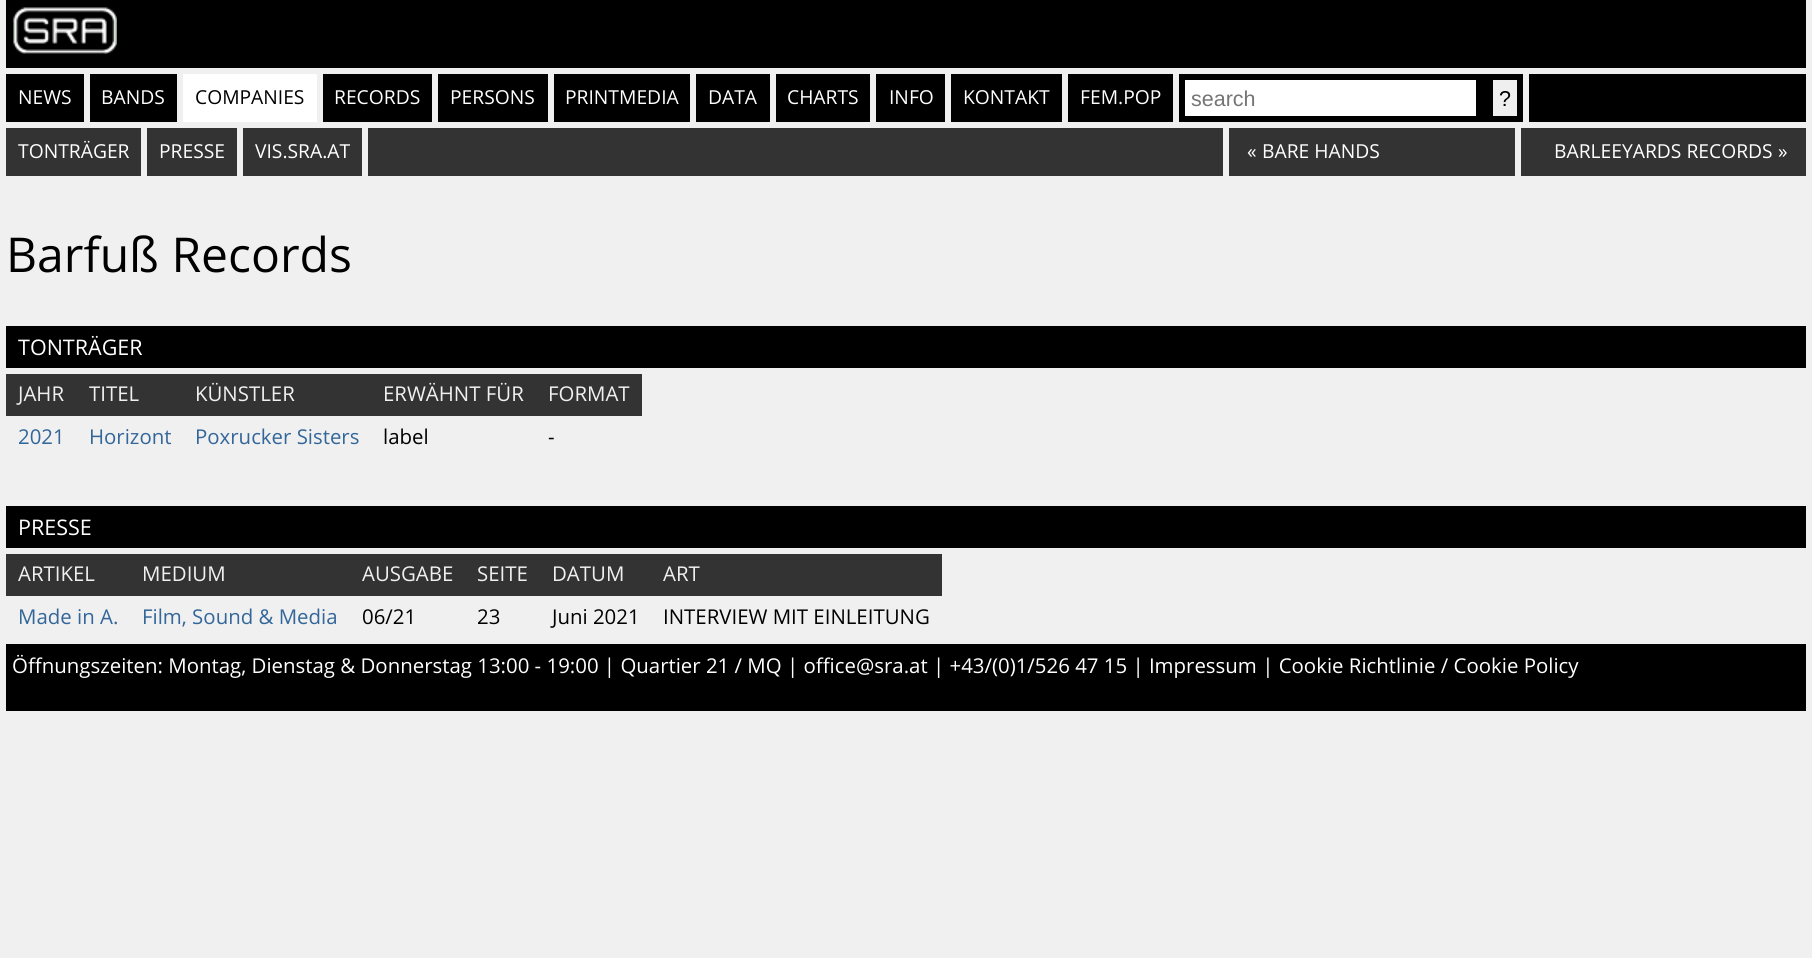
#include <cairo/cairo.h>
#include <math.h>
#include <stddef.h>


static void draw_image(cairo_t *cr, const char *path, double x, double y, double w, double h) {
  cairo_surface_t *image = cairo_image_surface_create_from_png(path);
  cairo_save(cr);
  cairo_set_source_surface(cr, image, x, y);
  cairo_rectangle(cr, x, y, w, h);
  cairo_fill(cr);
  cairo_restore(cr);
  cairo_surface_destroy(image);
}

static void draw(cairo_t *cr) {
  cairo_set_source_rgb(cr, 240 / 255.0, 240 / 255.0, 240 / 255.0);
  cairo_paint(cr);
  cairo_set_source_rgb(cr, 0, 0, 0);
  cairo_rectangle(cr, 6, 0, 1800, 68);
  cairo_fill(cr);
  draw_image(cr, "images/1.png", 12, 7, 105, 47);
  cairo_rectangle(cr, 6, 74, 78, 48);
  cairo_fill(cr);
  cairo_rectangle(cr, 90, 74, 87, 48);
  cairo_fill(cr);
  cairo_set_source_rgb(cr, 1, 1, 1);
  cairo_rectangle(cr, 183, 74, 134, 48);
  cairo_fill(cr);
  cairo_set_source_rgb(cr, 0, 0, 0);
  cairo_rectangle(cr, 323, 74, 109, 48);
  cairo_fill(cr);
  cairo_rectangle(cr, 438, 74, 110, 48);
  cairo_fill(cr);
  cairo_rectangle(cr, 554, 74, 136, 48);
  cairo_fill(cr);
  cairo_rectangle(cr, 696, 74, 74, 48);
  cairo_fill(cr);
  cairo_rectangle(cr, 776, 74, 94, 48);
  cairo_fill(cr);
  cairo_rectangle(cr, 876, 74, 69, 48);
  cairo_fill(cr);
  cairo_rectangle(cr, 951, 74, 111, 48);
  cairo_fill(cr);
  cairo_rectangle(cr, 1068, 74, 105, 48);
  cairo_fill(cr);
  cairo_rectangle(cr, 1179, 74, 344, 48);
  cairo_fill(cr);
  cairo_set_source_rgb(cr, 1, 1, 1);
  cairo_rectangle(cr, 1185, 80, 291, 36);
  cairo_fill(cr);
  cairo_set_source_rgb(cr, 239 / 255.0, 239 / 255.0, 239 / 255.0);
  cairo_rectangle(cr, 1493, 80, 24, 36);
  cairo_fill(cr);
  cairo_set_source_rgb(cr, 0, 0, 0);
  cairo_rectangle(cr, 1529, 74, 277, 48);
  cairo_fill(cr);
  cairo_set_source_rgb(cr, 51 / 255.0, 51 / 255.0, 51 / 255.0);
  cairo_rectangle(cr, 6, 128, 135, 48);
  cairo_fill(cr);
  cairo_rectangle(cr, 147, 128, 90, 48);
  cairo_fill(cr);
  cairo_rectangle(cr, 243, 128, 119, 48);
  cairo_fill(cr);
  cairo_rectangle(cr, 368, 128, 855, 48);
  cairo_fill(cr);
  cairo_rectangle(cr, 1229, 128, 286, 48);
  cairo_fill(cr);
  cairo_rectangle(cr, 1521, 128, 285, 48);
  cairo_fill(cr);
  cairo_set_source_rgb(cr, 0, 0, 0);
  cairo_rectangle(cr, 6, 326, 1800, 42);
  cairo_fill(cr);
  cairo_set_source_rgb(cr, 51 / 255.0, 51 / 255.0, 51 / 255.0);
  cairo_rectangle(cr, 6, 374, 636, 42);
  cairo_fill(cr);
  cairo_set_source_rgb(cr, 0, 0, 0);
  cairo_rectangle(cr, 6, 506, 1800, 42);
  cairo_fill(cr);
  cairo_set_source_rgb(cr, 51 / 255.0, 51 / 255.0, 51 / 255.0);
  cairo_rectangle(cr, 6, 554, 936, 42);
  cairo_fill(cr);
  cairo_set_source_rgb(cr, 0, 0, 0);
  cairo_rectangle(cr, 6, 644, 1800, 67);
  cairo_fill(cr);
  cairo_select_font_face(cr, "Open Sans", CAIRO_FONT_SLANT_NORMAL, CAIRO_FONT_WEIGHT_NORMAL);
  cairo_set_font_size(cr, 19.25);
  cairo_set_source_rgb(cr, 1, 1, 1);
  cairo_move_to(cr, 18, 104);
  cairo_show_text(cr, "NEWS");
  cairo_move_to(cr, 101, 104);
  cairo_show_text(cr, "BANDS");
  cairo_set_source_rgb(cr, 0, 0, 0);
  cairo_move_to(cr, 195, 104);
  cairo_show_text(cr, "COMPANIES");
  cairo_set_source_rgb(cr, 1, 1, 1);
  cairo_move_to(cr, 334, 104);
  cairo_show_text(cr, "RECORDS");
  cairo_move_to(cr, 450, 104);
  cairo_show_text(cr, "PERSONS");
  cairo_move_to(cr, 565, 104);
  cairo_show_text(cr, "PRINTMEDIA");
  cairo_move_to(cr, 708, 104);
  cairo_show_text(cr, "DATA");
  cairo_move_to(cr, 787, 104);
  cairo_show_text(cr, "CHARTS");
  cairo_move_to(cr, 889, 104);
  cairo_show_text(cr, "INFO");
  cairo_move_to(cr, 963, 104);
  cairo_show_text(cr, "KONTAKT");
  cairo_move_to(cr, 1080, 104);
  cairo_show_text(cr, "FEM.POP");
  cairo_select_font_face(cr, "Liberation Sans", CAIRO_FONT_SLANT_NORMAL, CAIRO_FONT_WEIGHT_NORMAL);
  cairo_set_font_size(cr, 21.5);
  cairo_set_source_rgb(cr, 117 / 255.0, 117 / 255.0, 117 / 255.0);
  cairo_move_to(cr, 1191, 106);
  cairo_show_text(cr, "search");
  cairo_set_source_rgb(cr, 0, 0, 0);
  cairo_move_to(cr, 1499, 106);
  cairo_show_text(cr, "?");
  cairo_select_font_face(cr, "Open Sans", CAIRO_FONT_SLANT_NORMAL, CAIRO_FONT_WEIGHT_NORMAL);
  cairo_set_font_size(cr, 19.25);
  cairo_set_source_rgb(cr, 1, 1, 1);
  cairo_move_to(cr, 18, 158);
  cairo_show_text(cr, "TONTRÄGER");
  cairo_move_to(cr, 159, 158);
  cairo_show_text(cr, "PRESSE");
  cairo_move_to(cr, 255, 158);
  cairo_show_text(cr, "VIS.SRA.AT");
  cairo_move_to(cr, 1247, 158);
  cairo_show_text(cr, "«");
  cairo_move_to(cr, 1262, 158);
  cairo_show_text(cr, "BARE HANDS");
  cairo_move_to(cr, 1554, 158);
  cairo_show_text(cr, "BARLEEYARDS RECORDS");
  cairo_move_to(cr, 1778, 158);
  cairo_show_text(cr, "»");
  cairo_set_font_size(cr, 48);
  cairo_set_source_rgb(cr, 0, 0, 0);
  cairo_move_to(cr, 6, 272);
  cairo_show_text(cr, "Barfuß Records");
  cairo_set_font_size(cr, 21.5);
  cairo_set_source_rgb(cr, 1, 1, 1);
  cairo_move_to(cr, 18, 355);
  cairo_show_text(cr, "TONTRÄGER");
  cairo_set_font_size(cr, 20.4);
  cairo_set_source_rgb(cr, 240 / 255.0, 240 / 255.0, 240 / 255.0);
  cairo_move_to(cr, 18, 401);
  cairo_show_text(cr, "JAHR");
  cairo_move_to(cr, 89, 401);
  cairo_show_text(cr, "TITEL");
  cairo_move_to(cr, 195, 401);
  cairo_show_text(cr, "KÜNSTLER");
  cairo_move_to(cr, 383, 401);
  cairo_show_text(cr, "ERWÄHNT FÜR");
  cairo_move_to(cr, 548, 401);
  cairo_show_text(cr, "FORMAT");
  cairo_set_source_rgb(cr, 51 / 255.0, 102 / 255.0, 153 / 255.0);
  cairo_move_to(cr, 18, 444);
  cairo_show_text(cr, "2021");
  cairo_move_to(cr, 89, 444);
  cairo_show_text(cr, "Horizont");
  cairo_move_to(cr, 195, 444);
  cairo_show_text(cr, "Poxrucker Sisters");
  cairo_set_source_rgb(cr, 0, 0, 0);
  cairo_move_to(cr, 383, 444);
  cairo_show_text(cr, "label");
  cairo_move_to(cr, 548, 444);
  cairo_show_text(cr, "-");
  cairo_set_font_size(cr, 21.5);
  cairo_set_source_rgb(cr, 1, 1, 1);
  cairo_move_to(cr, 18, 535);
  cairo_show_text(cr, "PRESSE");
  cairo_set_font_size(cr, 20.4);
  cairo_set_source_rgb(cr, 240 / 255.0, 240 / 255.0, 240 / 255.0);
  cairo_move_to(cr, 18, 581);
  cairo_show_text(cr, "ARTIKEL");
  cairo_move_to(cr, 142, 581);
  cairo_show_text(cr, "MEDIUM");
  cairo_move_to(cr, 362, 581);
  cairo_show_text(cr, "AUSGABE");
  cairo_move_to(cr, 477, 581);
  cairo_show_text(cr, "SEITE");
  cairo_move_to(cr, 552, 581);
  cairo_show_text(cr, "DATUM");
  cairo_move_to(cr, 663, 581);
  cairo_show_text(cr, "ART");
  cairo_set_source_rgb(cr, 51 / 255.0, 102 / 255.0, 153 / 255.0);
  cairo_move_to(cr, 18, 624);
  cairo_show_text(cr, "Made in A.");
  cairo_move_to(cr, 142, 624);
  cairo_show_text(cr, "Film, Sound & Media");
  cairo_set_source_rgb(cr, 0, 0, 0);
  cairo_move_to(cr, 362, 624);
  cairo_show_text(cr, "06/21");
  cairo_move_to(cr, 477, 624);
  cairo_show_text(cr, "23");
  cairo_move_to(cr, 552, 624);
  cairo_show_text(cr, "Juni 2021");
  cairo_move_to(cr, 663, 624);
  cairo_show_text(cr, "INTERVIEW MIT EINLEITUNG");
  cairo_set_source_rgb(cr, 1, 1, 1);
  cairo_move_to(cr, 12, 673);
  cairo_show_text(cr, "Öffnungszeiten: Montag, Dienstag & Donnerstag 13:00 - 19:00 | Quartier 21 / MQ | office@sra.at | +43/(0)1/526 47 15 | Impressum | Cookie Richtlinie / Cookie Policy");
}

int main(void) {
  cairo_surface_t *surface = cairo_image_surface_create(CAIRO_FORMAT_RGB24, 1812, 958);
  cairo_t *cr = cairo_create(surface);
  cairo_font_options_t *options = cairo_font_options_create();
  cairo_font_options_set_hint_metrics(options, CAIRO_HINT_METRICS_OFF);
  cairo_font_options_set_hint_style(options, CAIRO_HINT_STYLE_NONE);
  cairo_set_font_options(cr, options);
  cairo_set_miter_limit(cr, 4);
  draw(cr);
  cairo_surface_write_to_png(surface, "out.png");
  cairo_font_options_destroy(options);
  cairo_destroy(cr);
  cairo_surface_destroy(surface);
  return 0;
}
